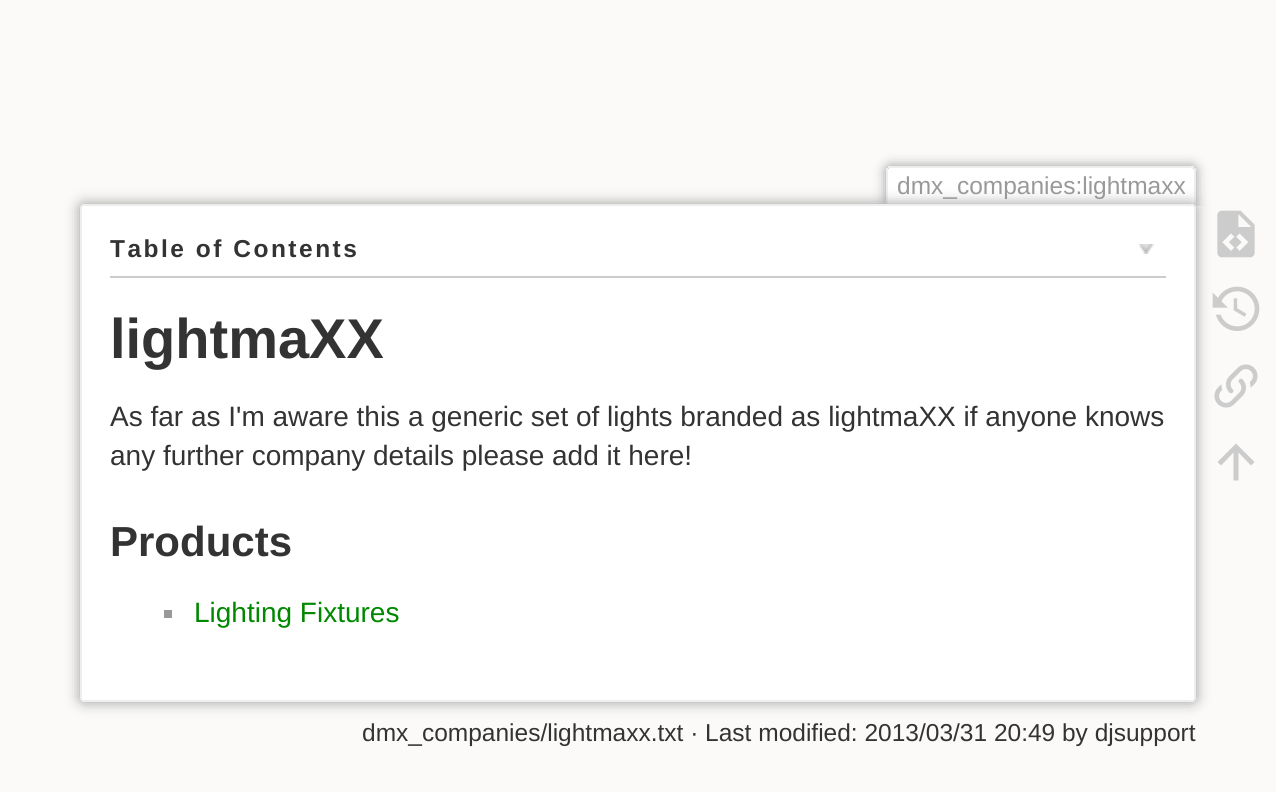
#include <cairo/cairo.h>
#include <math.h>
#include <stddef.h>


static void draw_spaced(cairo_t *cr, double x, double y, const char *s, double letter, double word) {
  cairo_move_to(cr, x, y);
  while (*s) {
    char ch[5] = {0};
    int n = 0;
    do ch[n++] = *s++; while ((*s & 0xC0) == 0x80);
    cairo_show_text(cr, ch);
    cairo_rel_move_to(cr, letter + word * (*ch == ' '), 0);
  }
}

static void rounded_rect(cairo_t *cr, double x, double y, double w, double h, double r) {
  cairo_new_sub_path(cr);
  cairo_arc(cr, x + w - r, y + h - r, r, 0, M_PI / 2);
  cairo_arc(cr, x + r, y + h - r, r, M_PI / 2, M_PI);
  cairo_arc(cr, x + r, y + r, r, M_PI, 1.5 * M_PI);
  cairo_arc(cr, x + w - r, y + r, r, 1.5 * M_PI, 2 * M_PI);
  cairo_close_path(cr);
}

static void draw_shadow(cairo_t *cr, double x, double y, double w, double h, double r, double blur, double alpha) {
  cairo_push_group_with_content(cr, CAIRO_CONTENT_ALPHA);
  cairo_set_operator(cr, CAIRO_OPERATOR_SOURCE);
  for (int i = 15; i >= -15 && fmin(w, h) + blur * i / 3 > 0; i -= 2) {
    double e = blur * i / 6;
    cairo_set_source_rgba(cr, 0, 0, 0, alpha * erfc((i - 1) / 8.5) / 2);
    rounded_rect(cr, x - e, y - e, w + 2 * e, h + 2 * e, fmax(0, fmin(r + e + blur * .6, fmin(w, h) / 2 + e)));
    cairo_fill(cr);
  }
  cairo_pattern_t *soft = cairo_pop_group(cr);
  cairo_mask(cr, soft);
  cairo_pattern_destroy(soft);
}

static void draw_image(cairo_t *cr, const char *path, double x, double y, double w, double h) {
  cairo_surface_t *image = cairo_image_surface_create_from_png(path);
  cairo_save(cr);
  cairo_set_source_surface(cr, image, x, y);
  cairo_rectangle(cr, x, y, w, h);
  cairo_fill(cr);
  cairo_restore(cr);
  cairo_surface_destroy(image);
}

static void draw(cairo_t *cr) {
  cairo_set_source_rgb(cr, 251 / 255.0, 250 / 255.0, 249 / 255.0);
  cairo_paint(cr);
  cairo_save(cr);
  cairo_rectangle(cr, 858, 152, 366, 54);
  cairo_clip(cr);
  cairo_set_source_rgb(cr, 153 / 255.0, 153 / 255.0, 153 / 255.0);
  draw_shadow(cr, 886, 166, 310, 40, 4, 6, 1);
  cairo_restore(cr);
  cairo_set_source_rgb(cr, 1, 1, 1);
  cairo_new_path(cr);
  cairo_move_to(cr, 890, 168);
  cairo_line_to(cr, 1192, 168);
  cairo_curve_to(cr, 1193, 168, 1194, 169, 1194, 170);
  cairo_line_to(cr, 1194, 206);
  cairo_line_to(cr, 888, 206);
  cairo_line_to(cr, 888, 170);
  cairo_curve_to(cr, 888, 169, 889, 168, 890, 168);
  cairo_close_path(cr);
  cairo_fill(cr);
  cairo_set_source_rgb(cr, 238 / 255.0, 238 / 255.0, 238 / 255.0);
  cairo_rectangle(cr, 888, 166, 306, 2);
  cairo_fill(cr);
  cairo_rectangle(cr, 1194, 168, 2, 38);
  cairo_fill(cr);
  cairo_rectangle(cr, 886, 168, 2, 38);
  cairo_fill(cr);
  cairo_set_source_rgb(cr, 153 / 255.0, 153 / 255.0, 153 / 255.0);
  draw_shadow(cr, 80, 204, 1116, 498, 4, 7, 1);
  cairo_set_source_rgb(cr, 1, 1, 1);
  rounded_rect(cr, 81, 205, 1114, 496, 3);
  cairo_fill_preserve(cr);
  cairo_set_source_rgb(cr, 238 / 255.0, 238 / 255.0, 238 / 255.0);
  cairo_stroke(cr);
  cairo_set_source_rgb(cr, 204 / 255.0, 204 / 255.0, 204 / 255.0);
  cairo_rectangle(cr, 110, 276, 1056, 2);
  cairo_fill(cr);
  draw_image(cr, "images/1.png", 1138, 244, 16, 10);
  cairo_set_source_rgb(cr, 153 / 255.0, 153 / 255.0, 153 / 255.0);
  cairo_rectangle(cr, 164, 610, 8, 8);
  cairo_fill(cr);
  draw_image(cr, "images/2.png", 1217, 210, 38, 48);
  draw_image(cr, "images/3.png", 1212, 286, 48, 45);
  draw_image(cr, "images/4.png", 1214, 364, 44, 44);
  cairo_set_source_rgb(cr, 204 / 255.0, 204 / 255.0, 204 / 255.0);
  cairo_new_path(cr);
  cairo_move_to(cr, 1238.5, 480.5);
  cairo_line_to(cr, 1233.5, 480.5);
  cairo_line_to(cr, 1233.5, 452.5);
  cairo_line_to(cr, 1221, 465.5);
  cairo_line_to(cr, 1217.5, 462);
  cairo_line_to(cr, 1236, 443.5);
  cairo_line_to(cr, 1254.5, 462);
  cairo_line_to(cr, 1251, 465.5);
  cairo_line_to(cr, 1238.5, 452.5);
  cairo_close_path(cr);
  cairo_fill(cr);
  cairo_select_font_face(cr, "Liberation Sans", CAIRO_FONT_SLANT_NORMAL, CAIRO_FONT_WEIGHT_NORMAL);
  cairo_set_font_size(cr, 24.5);
  cairo_set_source_rgb(cr, 153 / 255.0, 153 / 255.0, 153 / 255.0);
  cairo_move_to(cr, 897, 194);
  cairo_show_text(cr, "dmx_companies:lightmaxx");
  cairo_select_font_face(cr, "Liberation Sans", CAIRO_FONT_SLANT_NORMAL, CAIRO_FONT_WEIGHT_BOLD);
  cairo_set_source_rgb(cr, 51 / 255.0, 51 / 255.0, 51 / 255.0);
  draw_spaced(cr, 110, 257, "Table of Contents", 2.5, 0);
  cairo_set_font_size(cr, 56);
  cairo_move_to(cr, 110, 358);
  cairo_show_text(cr, "lightmaXX");
  cairo_select_font_face(cr, "Liberation Sans", CAIRO_FONT_SLANT_NORMAL, CAIRO_FONT_WEIGHT_NORMAL);
  cairo_set_font_size(cr, 28);
  cairo_move_to(cr, 110, 426);
  cairo_show_text(cr, "As far as I'm aware this a generic set of lights branded as lightmaXX if anyone knows");
  cairo_move_to(cr, 110, 465);
  cairo_show_text(cr, "any further company details please add it here!");
  cairo_select_font_face(cr, "Liberation Sans", CAIRO_FONT_SLANT_NORMAL, CAIRO_FONT_WEIGHT_BOLD);
  cairo_set_font_size(cr, 42);
  cairo_move_to(cr, 110, 556);
  cairo_show_text(cr, "Products");
  cairo_select_font_face(cr, "Liberation Sans", CAIRO_FONT_SLANT_NORMAL, CAIRO_FONT_WEIGHT_NORMAL);
  cairo_set_font_size(cr, 28);
  cairo_set_source_rgb(cr, 0, 136 / 255.0, 0);
  cairo_move_to(cr, 194, 622);
  cairo_show_text(cr, "Lighting Fixtures");
  cairo_set_font_size(cr, 24.5);
  cairo_set_source_rgb(cr, 51 / 255.0, 51 / 255.0, 51 / 255.0);
  cairo_move_to(cr, 362, 741);
  cairo_show_text(cr, "dmx_companies/lightmaxx.txt · Last modified: 2013/03/31 20:49 by djsupport");
}

int main(void) {
  cairo_surface_t *surface = cairo_image_surface_create(CAIRO_FORMAT_RGB24, 1276, 792);
  cairo_t *cr = cairo_create(surface);
  cairo_font_options_t *options = cairo_font_options_create();
  cairo_font_options_set_hint_metrics(options, CAIRO_HINT_METRICS_OFF);
  cairo_font_options_set_hint_style(options, CAIRO_HINT_STYLE_NONE);
  cairo_set_font_options(cr, options);
  cairo_set_miter_limit(cr, 4);
  draw(cr);
  cairo_surface_write_to_png(surface, "out.png");
  cairo_font_options_destroy(options);
  cairo_destroy(cr);
  cairo_surface_destroy(surface);
  return 0;
}
